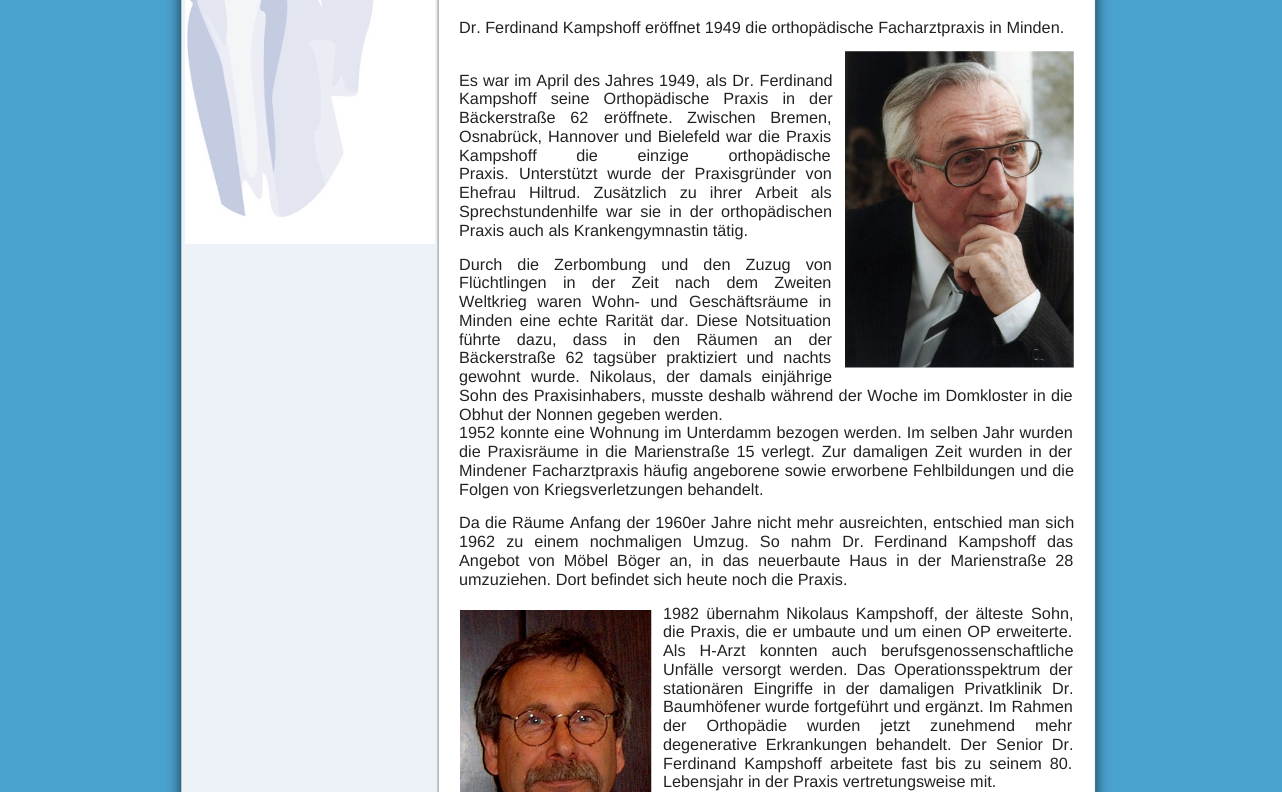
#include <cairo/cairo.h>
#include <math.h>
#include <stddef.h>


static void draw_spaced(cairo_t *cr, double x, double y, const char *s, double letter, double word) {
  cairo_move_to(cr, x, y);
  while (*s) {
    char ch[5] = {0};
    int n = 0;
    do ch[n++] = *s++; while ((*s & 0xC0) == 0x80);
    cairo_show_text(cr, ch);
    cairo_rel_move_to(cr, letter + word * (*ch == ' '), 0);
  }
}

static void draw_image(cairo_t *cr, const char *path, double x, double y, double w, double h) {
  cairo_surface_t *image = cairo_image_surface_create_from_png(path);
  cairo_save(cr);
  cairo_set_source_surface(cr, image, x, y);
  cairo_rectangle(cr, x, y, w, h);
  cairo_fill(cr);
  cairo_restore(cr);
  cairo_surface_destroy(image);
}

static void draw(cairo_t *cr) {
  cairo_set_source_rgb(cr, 73 / 255.0, 161 / 255.0, 205 / 255.0);
  cairo_paint(cr);
  draw_image(cr, "images/1.png", 160, 0, 964, 792);
  draw_image(cr, "images/2.png", 185, 0, 250, 244);
  draw_image(cr, "images/3.png", 845, 51, 229, 317);
  draw_image(cr, "images/4.png", 460, 610, 192, 182);
  cairo_select_font_face(cr, "Liberation Sans", CAIRO_FONT_SLANT_NORMAL, CAIRO_FONT_WEIGHT_NORMAL);
  cairo_set_font_size(cr, 16.25);
  cairo_set_source_rgb(cr, 34 / 255.0, 34 / 255.0, 34 / 255.0);
  cairo_move_to(cr, 459, 33);
  cairo_show_text(cr, "Dr. Ferdinand Kampshoff eröffnet 1949 die orthopädische Facharztpraxis in Minden.");
  draw_spaced(cr, 459, 86, "Es war im April des Jahres 1949,", 0, 0.5);
  draw_spaced(cr, 706, 86, "als Dr. Ferdinand", 0, 1);
  draw_spaced(cr, 459, 104, "Kampshoff seine Orthopädische Praxis in der", 0, 9.5);
  draw_spaced(cr, 459, 123, "Bäckerstraße 62", 0, 10);
  cairo_move_to(cr, 604, 123);
  cairo_show_text(cr, "eröffnete.");
  draw_spaced(cr, 687, 123, "Zwischen Bremen,", 0, 10);
  draw_spaced(cr, 459, 142, "Osnabrück, Hannover und Bielefeld war die Praxis", 0, 1.5);
  draw_spaced(cr, 459, 161, "Kampshoff die einzige orthopädische", 0, 35);
  cairo_move_to(cr, 459, 179);
  cairo_show_text(cr, "Praxis.");
  draw_spaced(cr, 519, 179, "Unterstützt wurde der Praxisgründer von", 0, 5.25);
  cairo_set_source_rgb(cr, 1, 1, 1);
  cairo_rectangle(cr, 674, 164, 96, 1);
  cairo_fill(cr);
  cairo_set_source_rgb(cr, 34 / 255.0, 34 / 255.0, 34 / 255.0);
  cairo_move_to(cr, 459, 198);
  cairo_show_text(cr, "Ehefrau");
  draw_spaced(cr, 529, 198, "Hiltrud. Zusätzlich zu ihrer Arbeit als", 0, 8.5);
  draw_spaced(cr, 459, 217, "Sprechstundenhilfe war sie in der", 0, 3.5);
  cairo_move_to(cr, 721, 217);
  cairo_show_text(cr, "orthopädischen");
  cairo_move_to(cr, 459, 236);
  cairo_show_text(cr, "Praxis auch als Krankengymnastin tätig.");
  draw_spaced(cr, 459, 270, "Durch die Zerbombung und den Zuzug von", 0, 10.5);
  draw_spaced(cr, 459, 288, "Flüchtlingen in der Zeit nach dem Zweiten", 0, 11.75);
  draw_spaced(cr, 459, 307, "Weltkrieg waren Wohn- und", 0, 6);
  draw_spaced(cr, 689, 307, "Geschäftsräume in", 0, 6);
  draw_spaced(cr, 459, 326, "Minden eine echte Rarität dar. Diese Notsituation", 0, 3);
  draw_spaced(cr, 459, 345, "führte dazu, dass in", 0, 11.75);
  draw_spaced(cr, 653, 345, "den Räumen an der", 0, 11.75);
  draw_spaced(cr, 459, 363, "Bäckerstraße 62 tagsüber praktiziert und nachts", 0, 5.25);
  cairo_move_to(cr, 459, 382);
  cairo_show_text(cr, "gewohnt");
  draw_spaced(cr, 531, 382, "wurde. Nikolaus, der damals einjährige", 0, 5.25);
  draw_spaced(cr, 459, 401, "Sohn des Praxisinhabers, musste deshalb", 0, 0.75);
  draw_spaced(cr, 771, 401, "während der Woche im Domkloster in die", 0, 0.75);
  cairo_move_to(cr, 459, 420);
  cairo_show_text(cr, "Obhut der Nonnen gegeben werden.");
  draw_spaced(cr, 459, 438, "1952 konnte eine Wohnung im Unterdamm bezogen", 0, 0.5);
  draw_spaced(cr, 844, 438, "werden. Im selben Jahr wurden", 0, 0.5);
  draw_spaced(cr, 459, 457, "die Praxisräume in die Marienstraße 15 verlegt. Zur damaligen Zeit wurden in der", 0, 2.4);
  cairo_move_to(cr, 459, 476);
  cairo_show_text(cr, "Mindener");
  draw_spaced(cr, 532, 476, "Facharztpraxis häufig angeborene sowie erworbene Fehlbildungen und die", 0, 0.5);
  cairo_move_to(cr, 459, 495);
  cairo_show_text(cr, "Folgen von Kriegsverletzungen behandelt.");
  draw_spaced(cr, 459, 528, "Da die Räume Anfang der 1960er Jahre nicht mehr", 0, 0.75);
  draw_spaced(cr, 839, 528, "ausreichten, entschied man sich", 0, 1);
  draw_spaced(cr, 459, 547, "1962 zu einem nochmaligen Umzug. So nahm Dr.", 0, 6.5);
  draw_spaced(cr, 874, 547, "Ferdinand Kampshoff das", 0, 6.5);
  draw_spaced(cr, 459, 566, "Angebot von Möbel Böger an, in das neuerbaute Haus in", 0, 4.5);
  draw_spaced(cr, 918, 566, "der Marienstraße 28", 0, 4.5);
  cairo_move_to(cr, 459, 585);
  cairo_show_text(cr, "umzuziehen. Dort befindet sich heute noch die Praxis.");
  draw_spaced(cr, 663, 619, "1982 übernahm Nikolaus Kampshoff, der älteste", 0, 2.5);
  cairo_move_to(cr, 1031, 619);
  cairo_show_text(cr, "Sohn,");
  draw_spaced(cr, 663, 637, "die Praxis, die er umbaute und um einen OP erweiterte.", 0, 1);
  draw_spaced(cr, 663, 656, "Als H-Arzt konnten auch", 0, 9.5);
  cairo_move_to(cr, 881, 656);
  cairo_show_text(cr, "berufsgenossenschaftliche");
  draw_spaced(cr, 663, 675, "Unfälle versorgt werden. Das Operationsspektrum der", 0, 4.25);
  draw_spaced(cr, 663, 694, "stationären Eingriffe in der damaligen Privatklinik Dr.", 0, 5.5);
  draw_spaced(cr, 663, 712, "Baumhöfener wurde fortgeführt und ergänzt. Im Rahmen", 0, 0.25);
  draw_spaced(cr, 663, 731, "der Orthopädie wurden jetzt zunehmend mehr", 0, 15.5);
  draw_spaced(cr, 663, 750, "degenerative Erkrankungen behandelt. Der", 0, 4.25);
  draw_spaced(cr, 996, 750, "Senior Dr.", 0, 4.25);
  draw_spaced(cr, 663, 769, "Ferdinand Kampshoff arbeitete fast bis zu seinem 80.", 0, 3.5);
  cairo_move_to(cr, 663, 787);
  cairo_show_text(cr, "Lebensjahr in der Praxis vertretungsweise mit.");
}

int main(void) {
  cairo_surface_t *surface = cairo_image_surface_create(CAIRO_FORMAT_RGB24, 1282, 792);
  cairo_t *cr = cairo_create(surface);
  cairo_font_options_t *options = cairo_font_options_create();
  cairo_font_options_set_hint_metrics(options, CAIRO_HINT_METRICS_OFF);
  cairo_font_options_set_hint_style(options, CAIRO_HINT_STYLE_NONE);
  cairo_set_font_options(cr, options);
  cairo_set_miter_limit(cr, 4);
  draw(cr);
  cairo_surface_write_to_png(surface, "out.png");
  cairo_font_options_destroy(options);
  cairo_destroy(cr);
  cairo_surface_destroy(surface);
  return 0;
}
